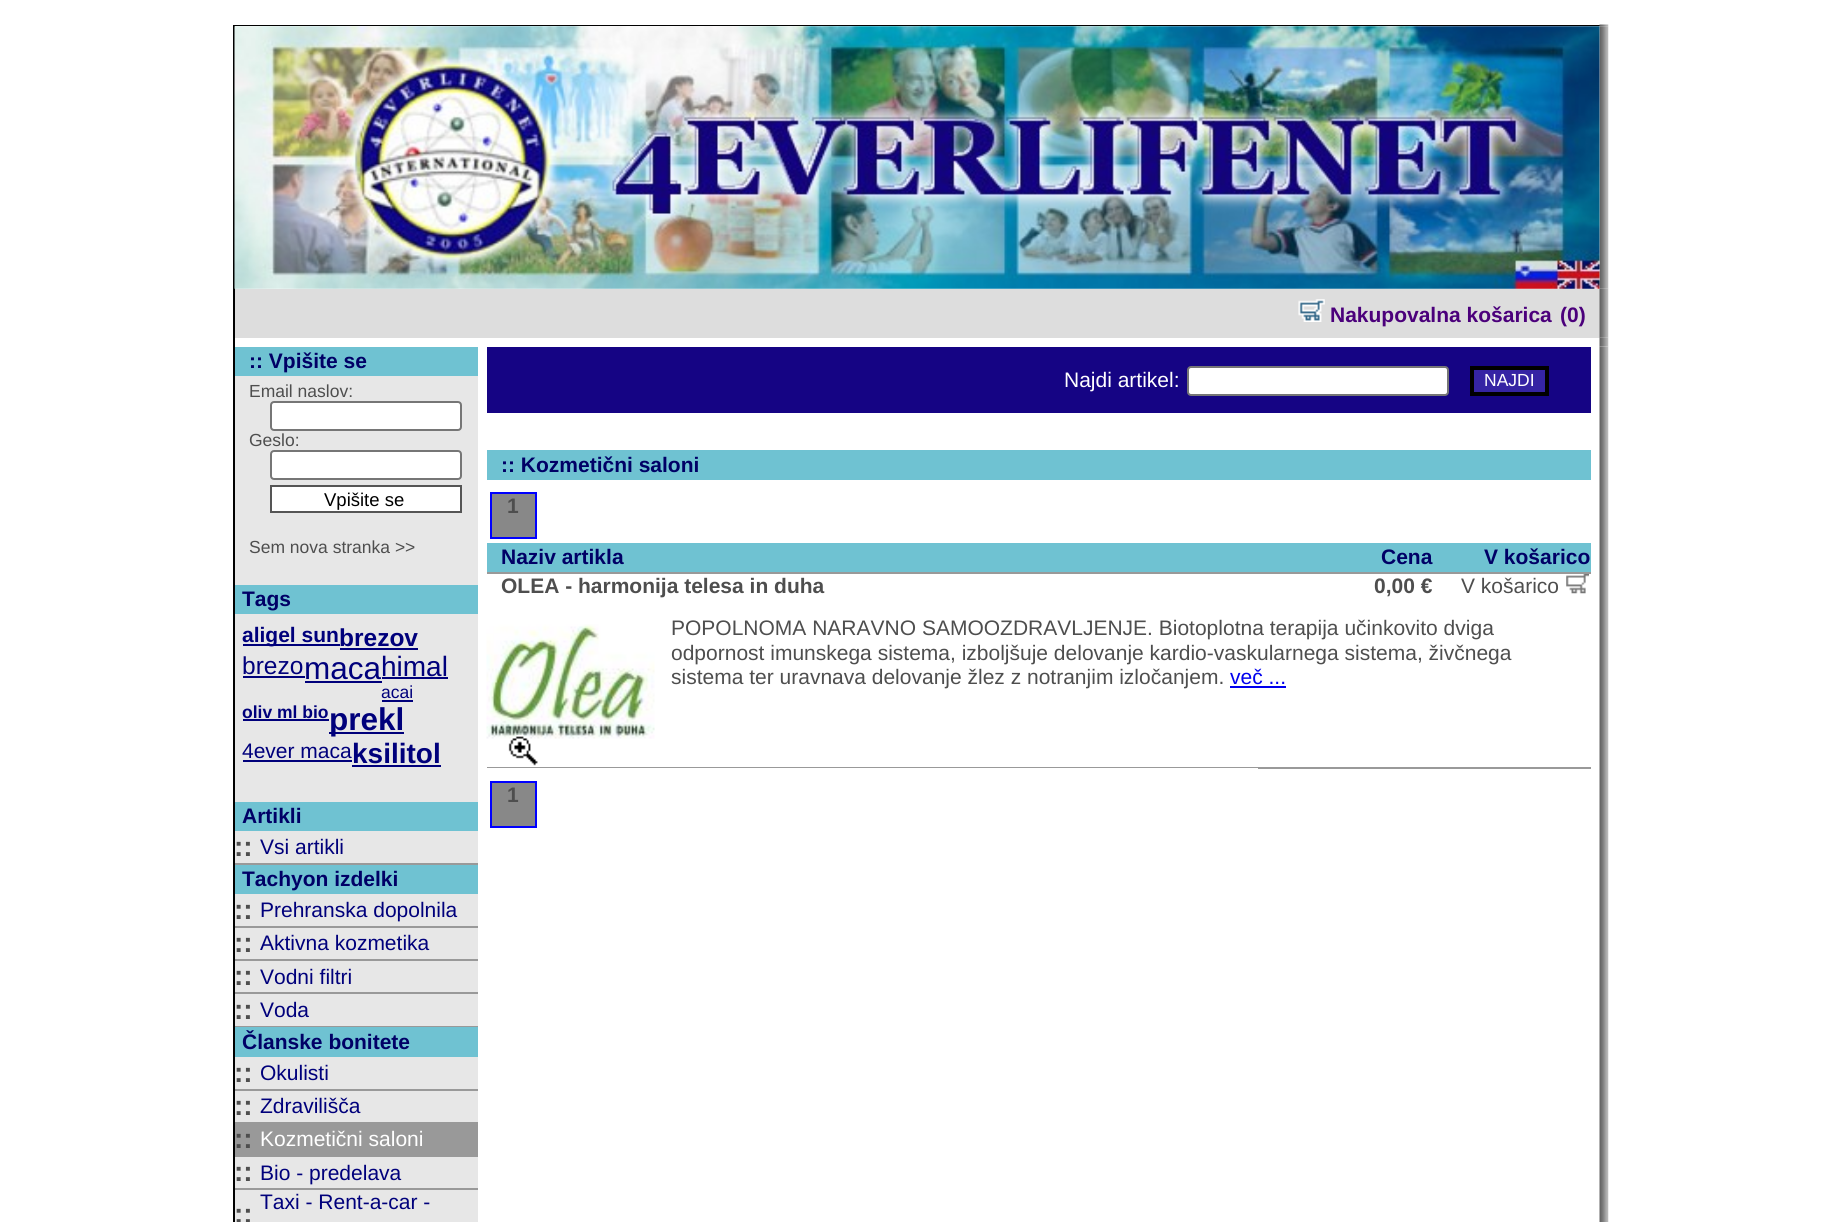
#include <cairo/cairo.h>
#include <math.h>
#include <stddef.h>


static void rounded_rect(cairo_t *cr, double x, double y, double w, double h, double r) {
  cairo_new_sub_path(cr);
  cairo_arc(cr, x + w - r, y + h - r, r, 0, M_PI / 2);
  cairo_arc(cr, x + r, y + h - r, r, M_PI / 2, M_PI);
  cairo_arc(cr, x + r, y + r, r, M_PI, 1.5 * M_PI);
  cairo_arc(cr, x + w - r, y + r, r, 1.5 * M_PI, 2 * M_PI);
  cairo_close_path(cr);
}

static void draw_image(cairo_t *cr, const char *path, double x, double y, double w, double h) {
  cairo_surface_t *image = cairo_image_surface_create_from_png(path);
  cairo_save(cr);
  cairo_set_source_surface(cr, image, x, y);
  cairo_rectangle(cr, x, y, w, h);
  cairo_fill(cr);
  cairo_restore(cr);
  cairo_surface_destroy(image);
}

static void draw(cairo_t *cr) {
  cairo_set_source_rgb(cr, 1, 1, 1);
  cairo_paint(cr);
  cairo_set_source_rgb(cr, 0, 0, 0);
  cairo_rectangle(cr, 233, 25, 1367, 1);
  cairo_fill(cr);
  draw_image(cr, "images/1.png", 1599, 24, 10, 3);
  cairo_rectangle(cr, 233, 26, 2, 1196);
  cairo_fill(cr);
  cairo_set_source_rgb(cr, 1, 1, 1);
  cairo_rectangle(cr, 1599, 26, 1, 1);
  cairo_fill(cr);
  draw_image(cr, "images/3.png", 1599, 26, 10, 263);
  cairo_set_source_rgb(cr, 221 / 255.0, 221 / 255.0, 221 / 255.0);
  cairo_rectangle(cr, 235, 289, 1365, 49);
  cairo_fill(cr);
  draw_image(cr, "images/5.png", 1599, 288, 10, 50);
  draw_image(cr, "images/2.png", 234, 26, 1366, 263);
  draw_image(cr, "images/4.png", 1298, 299, 27, 23);
  draw_image(cr, "images/6.png", 1599, 337, 10, 10);
  cairo_set_source_rgb(cr, 231 / 255.0, 231 / 255.0, 231 / 255.0);
  cairo_rectangle(cr, 235, 376, 243, 846);
  cairo_fill(cr);
  cairo_set_source_rgb(cr, 111 / 255.0, 194 / 255.0, 210 / 255.0);
  cairo_rectangle(cr, 235, 347, 243, 29);
  cairo_fill(cr);
  cairo_set_source_rgb(cr, 1, 1, 1);
  rounded_rect(cr, 271, 402, 190, 28, 3);
  cairo_fill_preserve(cr);
  cairo_set_source_rgb(cr, 118 / 255.0, 118 / 255.0, 118 / 255.0);
  cairo_stroke(cr);
  cairo_set_source_rgb(cr, 1, 1, 1);
  rounded_rect(cr, 271, 451, 190, 28, 3);
  cairo_fill_preserve(cr);
  cairo_set_source_rgb(cr, 118 / 255.0, 118 / 255.0, 118 / 255.0);
  cairo_stroke(cr);
  cairo_set_source_rgb(cr, 1, 1, 1);
  cairo_rectangle(cr, 271, 486, 190, 26);
  cairo_fill_preserve(cr);
  cairo_set_source_rgb(cr, 85 / 255.0, 85 / 255.0, 85 / 255.0);
  cairo_stroke(cr);
  cairo_set_source_rgb(cr, 111 / 255.0, 194 / 255.0, 210 / 255.0);
  cairo_rectangle(cr, 235, 585, 243, 29);
  cairo_fill(cr);
  cairo_set_source_rgb(cr, 0, 0, 123 / 255.0);
  cairo_rectangle(cr, 243, 644, 97, 2);
  cairo_fill(cr);
  cairo_rectangle(cr, 340, 648, 78, 2);
  cairo_fill(cr);
  cairo_rectangle(cr, 243, 676, 62, 2);
  cairo_fill(cr);
  cairo_rectangle(cr, 305, 681, 77, 2);
  cairo_fill(cr);
  cairo_rectangle(cr, 382, 677, 66, 2);
  cairo_fill(cr);
  cairo_rectangle(cr, 382, 700, 31, 2);
  cairo_fill(cr);
  cairo_rectangle(cr, 243, 719, 86, 2);
  cairo_fill(cr);
  cairo_rectangle(cr, 329, 732, 75, 2);
  cairo_fill(cr);
  cairo_rectangle(cr, 243, 760, 109, 2);
  cairo_fill(cr);
  cairo_rectangle(cr, 352, 765, 89, 2);
  cairo_fill(cr);
  cairo_set_source_rgb(cr, 111 / 255.0, 194 / 255.0, 210 / 255.0);
  cairo_rectangle(cr, 235, 802, 243, 29);
  cairo_fill(cr);
  cairo_set_source_rgb(cr, 153 / 255.0, 153 / 255.0, 153 / 255.0);
  cairo_rectangle(cr, 235, 863, 243, 2);
  cairo_fill(cr);
  cairo_set_source_rgb(cr, 111 / 255.0, 194 / 255.0, 210 / 255.0);
  cairo_rectangle(cr, 235, 865, 243, 29);
  cairo_fill(cr);
  cairo_set_source_rgb(cr, 153 / 255.0, 153 / 255.0, 153 / 255.0);
  cairo_rectangle(cr, 235, 926, 243, 2);
  cairo_fill(cr);
  cairo_rectangle(cr, 235, 959, 243, 2);
  cairo_fill(cr);
  cairo_rectangle(cr, 235, 992, 243, 2);
  cairo_fill(cr);
  cairo_rectangle(cr, 235, 1026, 243, 1);
  cairo_fill(cr);
  cairo_set_source_rgb(cr, 111 / 255.0, 194 / 255.0, 210 / 255.0);
  cairo_rectangle(cr, 235, 1027, 243, 30);
  cairo_fill(cr);
  cairo_set_source_rgb(cr, 153 / 255.0, 153 / 255.0, 153 / 255.0);
  cairo_rectangle(cr, 235, 1089, 243, 2);
  cairo_fill(cr);
  cairo_rectangle(cr, 235, 1122, 243, 35);
  cairo_fill(cr);
  cairo_rectangle(cr, 235, 1188, 243, 2);
  cairo_fill(cr);
  cairo_set_source_rgb(cr, 21 / 255.0, 4 / 255.0, 132 / 255.0);
  cairo_rectangle(cr, 487, 347, 1104, 66);
  cairo_fill(cr);
  cairo_set_source_rgb(cr, 1, 1, 1);
  rounded_rect(cr, 1188, 367, 260, 28, 3);
  cairo_fill_preserve(cr);
  cairo_set_source_rgb(cr, 118 / 255.0, 118 / 255.0, 118 / 255.0);
  cairo_stroke(cr);
  cairo_set_source_rgb(cr, 53 / 255.0, 36 / 255.0, 164 / 255.0);
  cairo_rectangle(cr, 1472, 368, 75, 26);
  cairo_fill_preserve(cr);
  cairo_set_source_rgb(cr, 0, 0, 0);
  cairo_set_line_width(cr, 4);
  cairo_stroke(cr);
  cairo_set_source_rgb(cr, 111 / 255.0, 194 / 255.0, 210 / 255.0);
  cairo_rectangle(cr, 487, 450, 1104, 30);
  cairo_fill(cr);
  cairo_set_source_rgb(cr, 136 / 255.0, 136 / 255.0, 136 / 255.0);
  cairo_rectangle(cr, 491, 493, 45, 45);
  cairo_fill_preserve(cr);
  cairo_set_source_rgb(cr, 0, 0, 1);
  cairo_set_line_width(cr, 2);
  cairo_stroke(cr);
  cairo_set_source_rgb(cr, 111 / 255.0, 194 / 255.0, 210 / 255.0);
  cairo_rectangle(cr, 487, 543, 1104, 29);
  cairo_fill(cr);
  cairo_set_source_rgb(cr, 153 / 255.0, 153 / 255.0, 153 / 255.0);
  cairo_rectangle(cr, 487, 572, 1104, 2);
  cairo_fill(cr);
  draw_image(cr, "images/7.png", 1566, 574, 23, 20);
  draw_image(cr, "images/8.png", 486, 624, 169, 115);
  cairo_set_source_rgb(cr, 0, 0, 238 / 255.0);
  cairo_rectangle(cr, 1230, 686, 56, 2);
  cairo_fill(cr);
  cairo_set_source_rgb(cr, 153 / 255.0, 153 / 255.0, 153 / 255.0);
  cairo_rectangle(cr, 487, 767, 1104, 2);
  cairo_fill(cr);
  cairo_set_source_rgb(cr, 1, 1, 1);
  cairo_rectangle(cr, 487, 768, 771, 1);
  cairo_fill(cr);
  cairo_set_source_rgb(cr, 136 / 255.0, 136 / 255.0, 136 / 255.0);
  cairo_rectangle(cr, 491, 782, 45, 45);
  cairo_fill_preserve(cr);
  cairo_set_source_rgb(cr, 0, 0, 1);
  cairo_stroke(cr);
  draw_image(cr, "images/9.png", 1599, 346, 10, 876);
  draw_image(cr, "images/10.png", 508, 735, 30, 31);
  cairo_select_font_face(cr, "Liberation Sans", CAIRO_FONT_SLANT_NORMAL, CAIRO_FONT_WEIGHT_BOLD);
  cairo_set_font_size(cr, 21);
  cairo_set_source_rgb(cr, 75 / 255.0, 0, 123 / 255.0);
  cairo_move_to(cr, 1330, 322);
  cairo_show_text(cr, "Nakupovalna košarica");
  cairo_move_to(cr, 1560, 322);
  cairo_show_text(cr, "(0)");
  cairo_set_source_rgb(cr, 0, 0, 102 / 255.0);
  cairo_move_to(cr, 249, 368);
  cairo_show_text(cr, ":: Vpišite se");
  cairo_select_font_face(cr, "Liberation Sans", CAIRO_FONT_SLANT_NORMAL, CAIRO_FONT_WEIGHT_NORMAL);
  cairo_set_font_size(cr, 17.5);
  cairo_set_source_rgb(cr, 78 / 255.0, 78 / 255.0, 78 / 255.0);
  cairo_move_to(cr, 249, 397);
  cairo_show_text(cr, "Email naslov:");
  cairo_move_to(cr, 249, 446);
  cairo_show_text(cr, "Geslo:");
  cairo_set_font_size(cr, 18.5);
  cairo_set_source_rgb(cr, 0, 0, 0);
  cairo_move_to(cr, 324, 506);
  cairo_show_text(cr, "Vpišite se");
  cairo_set_font_size(cr, 17.5);
  cairo_set_source_rgb(cr, 78 / 255.0, 78 / 255.0, 78 / 255.0);
  cairo_move_to(cr, 249, 553);
  cairo_show_text(cr, "Sem nova stranka >>");
  cairo_select_font_face(cr, "Liberation Sans", CAIRO_FONT_SLANT_NORMAL, CAIRO_FONT_WEIGHT_BOLD);
  cairo_set_font_size(cr, 21);
  cairo_set_source_rgb(cr, 0, 0, 102 / 255.0);
  cairo_move_to(cr, 242, 606);
  cairo_show_text(cr, "Tags");
  cairo_set_source_rgb(cr, 0, 0, 123 / 255.0);
  cairo_move_to(cr, 242, 642);
  cairo_show_text(cr, "aligel sun");
  cairo_set_font_size(cr, 24.5);
  cairo_move_to(cr, 339, 646);
  cairo_show_text(cr, "brezov");
  cairo_select_font_face(cr, "Liberation Sans", CAIRO_FONT_SLANT_NORMAL, CAIRO_FONT_WEIGHT_NORMAL);
  cairo_move_to(cr, 242, 674);
  cairo_show_text(cr, "brezo");
  cairo_set_font_size(cr, 31.5);
  cairo_move_to(cr, 304, 679);
  cairo_show_text(cr, "maca");
  cairo_set_font_size(cr, 28);
  cairo_move_to(cr, 381, 676);
  cairo_show_text(cr, "himal");
  cairo_set_font_size(cr, 17.5);
  cairo_move_to(cr, 381, 698);
  cairo_show_text(cr, "acai");
  cairo_select_font_face(cr, "Liberation Sans", CAIRO_FONT_SLANT_NORMAL, CAIRO_FONT_WEIGHT_BOLD);
  cairo_move_to(cr, 242, 718);
  cairo_show_text(cr, "oliv ml bio");
  cairo_set_font_size(cr, 31.5);
  cairo_move_to(cr, 329, 730);
  cairo_show_text(cr, "prekl");
  cairo_select_font_face(cr, "Liberation Sans", CAIRO_FONT_SLANT_NORMAL, CAIRO_FONT_WEIGHT_NORMAL);
  cairo_set_font_size(cr, 21);
  cairo_move_to(cr, 242, 758);
  cairo_show_text(cr, "4ever maca");
  cairo_select_font_face(cr, "Liberation Sans", CAIRO_FONT_SLANT_NORMAL, CAIRO_FONT_WEIGHT_BOLD);
  cairo_set_font_size(cr, 28);
  cairo_move_to(cr, 352, 763);
  cairo_show_text(cr, "ksilitol");
  cairo_set_font_size(cr, 21);
  cairo_set_source_rgb(cr, 0, 0, 102 / 255.0);
  cairo_move_to(cr, 242, 823);
  cairo_show_text(cr, "Artikli");
  cairo_set_font_size(cr, 28);
  cairo_set_source_rgb(cr, 78 / 255.0, 78 / 255.0, 78 / 255.0);
  cairo_move_to(cr, 234, 856);
  cairo_show_text(cr, "::");
  cairo_select_font_face(cr, "Liberation Sans", CAIRO_FONT_SLANT_NORMAL, CAIRO_FONT_WEIGHT_NORMAL);
  cairo_set_font_size(cr, 21);
  cairo_set_source_rgb(cr, 0, 0, 123 / 255.0);
  cairo_move_to(cr, 260, 854);
  cairo_show_text(cr, "Vsi artikli");
  cairo_select_font_face(cr, "Liberation Sans", CAIRO_FONT_SLANT_NORMAL, CAIRO_FONT_WEIGHT_BOLD);
  cairo_set_source_rgb(cr, 0, 0, 102 / 255.0);
  cairo_move_to(cr, 242, 886);
  cairo_show_text(cr, "Tachyon izdelki");
  cairo_set_font_size(cr, 28);
  cairo_set_source_rgb(cr, 78 / 255.0, 78 / 255.0, 78 / 255.0);
  cairo_move_to(cr, 234, 919);
  cairo_show_text(cr, "::");
  cairo_select_font_face(cr, "Liberation Sans", CAIRO_FONT_SLANT_NORMAL, CAIRO_FONT_WEIGHT_NORMAL);
  cairo_set_font_size(cr, 21);
  cairo_set_source_rgb(cr, 0, 0, 123 / 255.0);
  cairo_move_to(cr, 260, 917);
  cairo_show_text(cr, "Prehranska dopolnila");
  cairo_select_font_face(cr, "Liberation Sans", CAIRO_FONT_SLANT_NORMAL, CAIRO_FONT_WEIGHT_BOLD);
  cairo_set_font_size(cr, 28);
  cairo_set_source_rgb(cr, 78 / 255.0, 78 / 255.0, 78 / 255.0);
  cairo_move_to(cr, 234, 952);
  cairo_show_text(cr, "::");
  cairo_select_font_face(cr, "Liberation Sans", CAIRO_FONT_SLANT_NORMAL, CAIRO_FONT_WEIGHT_NORMAL);
  cairo_set_font_size(cr, 21);
  cairo_set_source_rgb(cr, 0, 0, 123 / 255.0);
  cairo_move_to(cr, 260, 950);
  cairo_show_text(cr, "Aktivna kozmetika");
  cairo_select_font_face(cr, "Liberation Sans", CAIRO_FONT_SLANT_NORMAL, CAIRO_FONT_WEIGHT_BOLD);
  cairo_set_font_size(cr, 28);
  cairo_set_source_rgb(cr, 78 / 255.0, 78 / 255.0, 78 / 255.0);
  cairo_move_to(cr, 234, 985);
  cairo_show_text(cr, "::");
  cairo_select_font_face(cr, "Liberation Sans", CAIRO_FONT_SLANT_NORMAL, CAIRO_FONT_WEIGHT_NORMAL);
  cairo_set_font_size(cr, 21);
  cairo_set_source_rgb(cr, 0, 0, 123 / 255.0);
  cairo_move_to(cr, 260, 984);
  cairo_show_text(cr, "Vodni filtri");
  cairo_select_font_face(cr, "Liberation Sans", CAIRO_FONT_SLANT_NORMAL, CAIRO_FONT_WEIGHT_BOLD);
  cairo_set_font_size(cr, 28);
  cairo_set_source_rgb(cr, 78 / 255.0, 78 / 255.0, 78 / 255.0);
  cairo_move_to(cr, 234, 1019);
  cairo_show_text(cr, "::");
  cairo_select_font_face(cr, "Liberation Sans", CAIRO_FONT_SLANT_NORMAL, CAIRO_FONT_WEIGHT_NORMAL);
  cairo_set_font_size(cr, 21);
  cairo_set_source_rgb(cr, 0, 0, 123 / 255.0);
  cairo_move_to(cr, 260, 1017);
  cairo_show_text(cr, "Voda");
  cairo_select_font_face(cr, "Liberation Sans", CAIRO_FONT_SLANT_NORMAL, CAIRO_FONT_WEIGHT_BOLD);
  cairo_set_source_rgb(cr, 0, 0, 102 / 255.0);
  cairo_move_to(cr, 242, 1049);
  cairo_show_text(cr, "Članske bonitete");
  cairo_set_font_size(cr, 28);
  cairo_set_source_rgb(cr, 78 / 255.0, 78 / 255.0, 78 / 255.0);
  cairo_move_to(cr, 234, 1082);
  cairo_show_text(cr, "::");
  cairo_select_font_face(cr, "Liberation Sans", CAIRO_FONT_SLANT_NORMAL, CAIRO_FONT_WEIGHT_NORMAL);
  cairo_set_font_size(cr, 21);
  cairo_set_source_rgb(cr, 0, 0, 123 / 255.0);
  cairo_move_to(cr, 260, 1080);
  cairo_show_text(cr, "Okulisti");
  cairo_select_font_face(cr, "Liberation Sans", CAIRO_FONT_SLANT_NORMAL, CAIRO_FONT_WEIGHT_BOLD);
  cairo_set_font_size(cr, 28);
  cairo_set_source_rgb(cr, 78 / 255.0, 78 / 255.0, 78 / 255.0);
  cairo_move_to(cr, 234, 1115);
  cairo_show_text(cr, "::");
  cairo_select_font_face(cr, "Liberation Sans", CAIRO_FONT_SLANT_NORMAL, CAIRO_FONT_WEIGHT_NORMAL);
  cairo_set_font_size(cr, 21);
  cairo_set_source_rgb(cr, 0, 0, 123 / 255.0);
  cairo_move_to(cr, 260, 1113);
  cairo_show_text(cr, "Zdravilišča");
  cairo_select_font_face(cr, "Liberation Sans", CAIRO_FONT_SLANT_NORMAL, CAIRO_FONT_WEIGHT_BOLD);
  cairo_set_font_size(cr, 28);
  cairo_set_source_rgb(cr, 78 / 255.0, 78 / 255.0, 78 / 255.0);
  cairo_move_to(cr, 234, 1148);
  cairo_show_text(cr, "::");
  cairo_select_font_face(cr, "Liberation Sans", CAIRO_FONT_SLANT_NORMAL, CAIRO_FONT_WEIGHT_NORMAL);
  cairo_set_font_size(cr, 21);
  cairo_set_source_rgb(cr, 1, 1, 1);
  cairo_move_to(cr, 260, 1146);
  cairo_show_text(cr, "Kozmetični saloni");
  cairo_select_font_face(cr, "Liberation Sans", CAIRO_FONT_SLANT_NORMAL, CAIRO_FONT_WEIGHT_BOLD);
  cairo_set_font_size(cr, 28);
  cairo_set_source_rgb(cr, 78 / 255.0, 78 / 255.0, 78 / 255.0);
  cairo_move_to(cr, 234, 1181);
  cairo_show_text(cr, "::");
  cairo_select_font_face(cr, "Liberation Sans", CAIRO_FONT_SLANT_NORMAL, CAIRO_FONT_WEIGHT_NORMAL);
  cairo_set_font_size(cr, 21);
  cairo_set_source_rgb(cr, 0, 0, 123 / 255.0);
  cairo_move_to(cr, 260, 1180);
  cairo_show_text(cr, "Bio - predelava");
  cairo_move_to(cr, 260, 1209);
  cairo_show_text(cr, "Taxi - Rent-a-car -");
  cairo_select_font_face(cr, "Liberation Sans", CAIRO_FONT_SLANT_NORMAL, CAIRO_FONT_WEIGHT_BOLD);
  cairo_set_font_size(cr, 28);
  cairo_set_source_rgb(cr, 78 / 255.0, 78 / 255.0, 78 / 255.0);
  cairo_move_to(cr, 234, 1223);
  cairo_show_text(cr, "::");
  cairo_select_font_face(cr, "Liberation Sans", CAIRO_FONT_SLANT_NORMAL, CAIRO_FONT_WEIGHT_NORMAL);
  cairo_set_font_size(cr, 21);
  cairo_set_source_rgb(cr, 1, 1, 1);
  cairo_move_to(cr, 1064, 387);
  cairo_show_text(cr, "Najdi artikel:");
  cairo_set_font_size(cr, 17.5);
  cairo_move_to(cr, 1484, 386);
  cairo_show_text(cr, "NAJDI");
  cairo_select_font_face(cr, "Liberation Sans", CAIRO_FONT_SLANT_NORMAL, CAIRO_FONT_WEIGHT_BOLD);
  cairo_set_font_size(cr, 21);
  cairo_set_source_rgb(cr, 0, 0, 102 / 255.0);
  cairo_move_to(cr, 501, 472);
  cairo_show_text(cr, ":: Kozmetični saloni");
  cairo_set_source_rgb(cr, 78 / 255.0, 78 / 255.0, 78 / 255.0);
  cairo_move_to(cr, 507, 513);
  cairo_show_text(cr, "1");
  cairo_set_source_rgb(cr, 0, 0, 102 / 255.0);
  cairo_move_to(cr, 501, 564);
  cairo_show_text(cr, "Naziv artikla");
  cairo_move_to(cr, 1381, 564);
  cairo_show_text(cr, "Cena");
  cairo_move_to(cr, 1484, 564);
  cairo_show_text(cr, "V košarico");
  cairo_set_source_rgb(cr, 78 / 255.0, 78 / 255.0, 78 / 255.0);
  cairo_move_to(cr, 501, 593);
  cairo_show_text(cr, "OLEA - harmonija telesa in duha");
  cairo_move_to(cr, 1374, 593);
  cairo_show_text(cr, "0,00 €");
  cairo_select_font_face(cr, "Liberation Sans", CAIRO_FONT_SLANT_NORMAL, CAIRO_FONT_WEIGHT_NORMAL);
  cairo_move_to(cr, 1461, 593);
  cairo_show_text(cr, "V košarico");
  cairo_move_to(cr, 671, 635);
  cairo_show_text(cr, "POPOLNOMA NARAVNO SAMOOZDRAVLJENJE. Biotoplotna terapija učinkovito dviga");
  cairo_move_to(cr, 671, 660);
  cairo_show_text(cr, "odpornost imunskega sistema, izboljšuje delovanje kardio-vaskularnega sistema, živčnega");
  cairo_move_to(cr, 671, 684);
  cairo_show_text(cr, "sistema ter uravnava delovanje žlez z notranjim izločanjem.");
  cairo_set_source_rgb(cr, 0, 0, 238 / 255.0);
  cairo_move_to(cr, 1230, 684);
  cairo_show_text(cr, "več ...");
  cairo_select_font_face(cr, "Liberation Sans", CAIRO_FONT_SLANT_NORMAL, CAIRO_FONT_WEIGHT_BOLD);
  cairo_set_source_rgb(cr, 78 / 255.0, 78 / 255.0, 78 / 255.0);
  cairo_move_to(cr, 507, 802);
  cairo_show_text(cr, "1");
}

int main(void) {
  cairo_surface_t *surface = cairo_image_surface_create(CAIRO_FORMAT_RGB24, 1839, 1222);
  cairo_t *cr = cairo_create(surface);
  cairo_font_options_t *options = cairo_font_options_create();
  cairo_font_options_set_hint_metrics(options, CAIRO_HINT_METRICS_OFF);
  cairo_font_options_set_hint_style(options, CAIRO_HINT_STYLE_NONE);
  cairo_set_font_options(cr, options);
  cairo_set_miter_limit(cr, 4);
  draw(cr);
  cairo_surface_write_to_png(surface, "out.png");
  cairo_font_options_destroy(options);
  cairo_destroy(cr);
  cairo_surface_destroy(surface);
  return 0;
}
